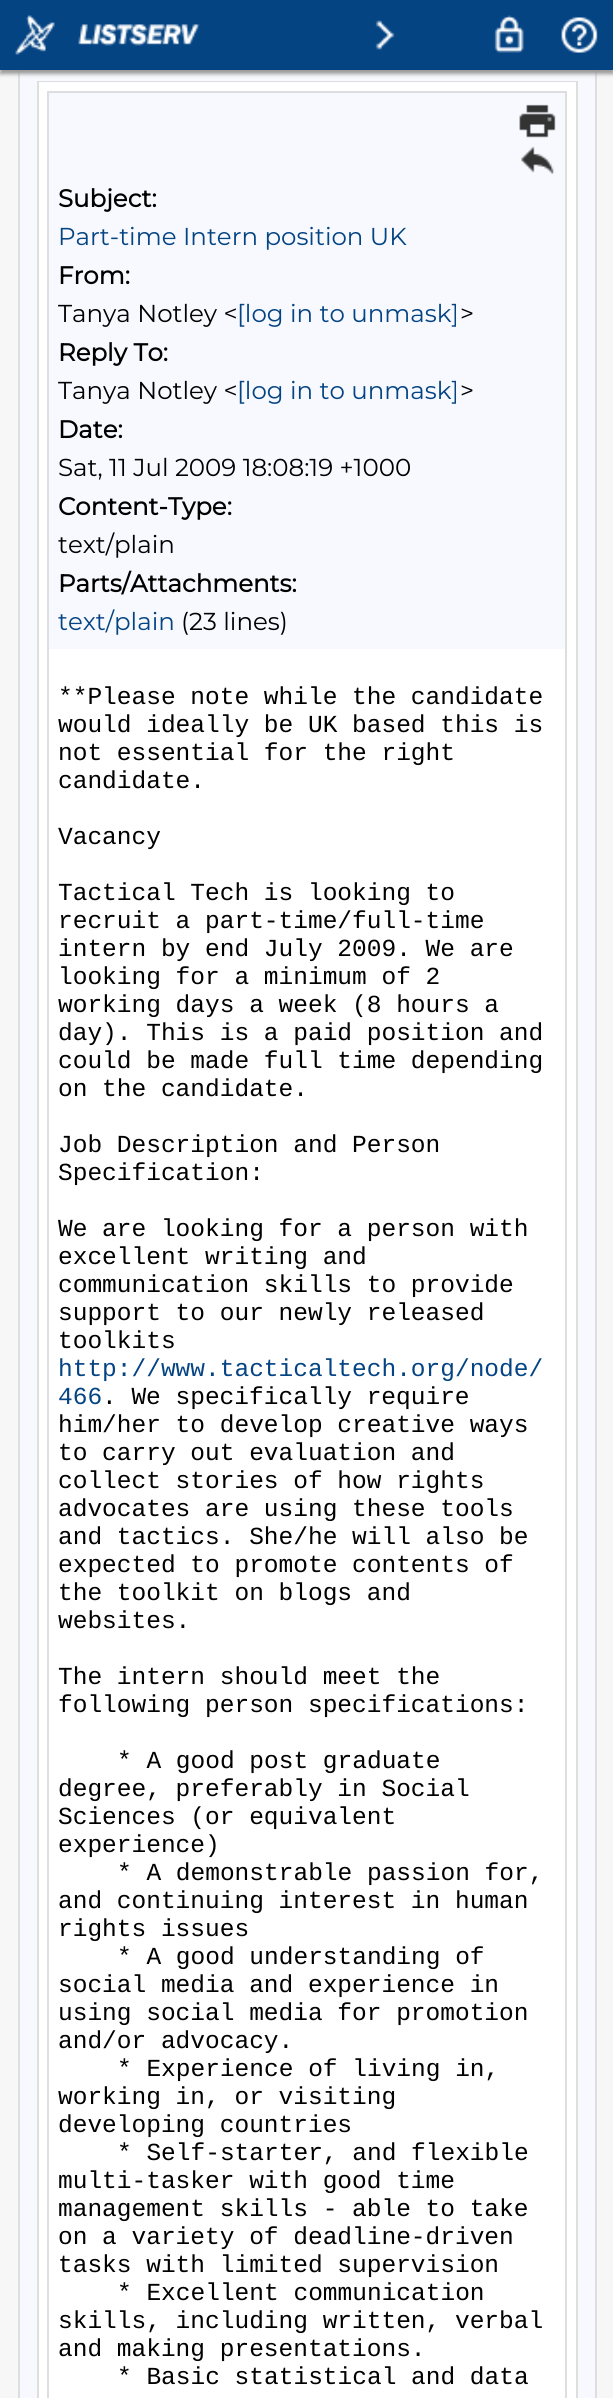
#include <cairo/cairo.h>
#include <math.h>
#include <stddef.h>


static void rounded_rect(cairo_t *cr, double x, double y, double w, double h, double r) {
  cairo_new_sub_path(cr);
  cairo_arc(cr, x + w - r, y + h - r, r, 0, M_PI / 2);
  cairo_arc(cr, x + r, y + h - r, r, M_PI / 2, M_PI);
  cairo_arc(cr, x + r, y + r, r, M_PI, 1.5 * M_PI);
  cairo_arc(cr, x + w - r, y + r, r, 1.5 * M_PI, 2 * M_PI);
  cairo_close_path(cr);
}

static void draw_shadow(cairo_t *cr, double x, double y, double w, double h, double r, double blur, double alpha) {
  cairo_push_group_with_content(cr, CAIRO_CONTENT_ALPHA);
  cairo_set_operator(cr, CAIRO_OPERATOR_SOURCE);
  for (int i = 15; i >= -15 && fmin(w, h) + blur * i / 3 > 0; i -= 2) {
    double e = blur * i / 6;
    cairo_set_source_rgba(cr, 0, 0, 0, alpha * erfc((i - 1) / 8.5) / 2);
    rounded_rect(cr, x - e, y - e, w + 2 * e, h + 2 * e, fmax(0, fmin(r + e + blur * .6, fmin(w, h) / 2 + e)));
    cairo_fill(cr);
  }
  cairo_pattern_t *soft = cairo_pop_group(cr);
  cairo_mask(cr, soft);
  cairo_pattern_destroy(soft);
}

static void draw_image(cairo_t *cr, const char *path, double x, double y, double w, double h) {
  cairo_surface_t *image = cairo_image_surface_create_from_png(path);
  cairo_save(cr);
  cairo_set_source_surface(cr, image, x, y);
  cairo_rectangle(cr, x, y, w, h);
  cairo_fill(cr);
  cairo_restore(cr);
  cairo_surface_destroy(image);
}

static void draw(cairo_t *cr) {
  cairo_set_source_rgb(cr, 247 / 255.0, 247 / 255.0, 247 / 255.0);
  cairo_paint(cr);
  cairo_set_source_rgb(cr, 247 / 255.0, 249 / 255.0, 254 / 255.0);
  cairo_rectangle(cr, 20, 70, 575, 2328);
  cairo_fill(cr);
  cairo_rectangle(cr, 19, -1, 577, 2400);
  cairo_set_source_rgb(cr, 222 / 255.0, 222 / 255.0, 222 / 255.0);
  cairo_stroke(cr);
  cairo_set_source_rgb(cr, 153 / 255.0, 153 / 255.0, 153 / 255.0);
  draw_shadow(cr, 0, 4, 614, 70, 0, 2, 1);
  cairo_set_source_rgb(cr, 5 / 255.0, 68 / 255.0, 131 / 255.0);
  cairo_rectangle(cr, 0, 0, 613, 70);
  cairo_fill(cr);
  draw_image(cr, "images/1.png", 15, 15, 40, 40);
  draw_image(cr, "images/2.png", 78, 24, 122, 22);
  draw_image(cr, "images/3.png", 375, 20, 20, 30);
  draw_image(cr, "images/4.png", 494, 15, 30, 38);
  draw_image(cr, "images/5.png", 561, 17, 37, 36);
  cairo_rectangle(cr, 38, 82, 539, 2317);
  cairo_set_source_rgb(cr, 222 / 255.0, 222 / 255.0, 222 / 255.0);
  cairo_stroke(cr);
  cairo_set_source_rgb(cr, 1, 1, 1);
  cairo_rectangle(cr, 39, 82, 537, 2316);
  cairo_fill(cr);
  cairo_rectangle(cr, 48, 92, 518, 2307);
  cairo_set_source_rgb(cr, 222 / 255.0, 222 / 255.0, 222 / 255.0);
  cairo_stroke(cr);
  cairo_set_source_rgb(cr, 247 / 255.0, 249 / 255.0, 254 / 255.0);
  cairo_rectangle(cr, 49, 93, 516, 556);
  cairo_fill(cr);
  draw_image(cr, "images/6.png", 519, 104, 37, 34);
  draw_image(cr, "images/7.png", 521, 146, 33, 28);
  cairo_select_font_face(cr, "Montserrat", CAIRO_FONT_SLANT_NORMAL, CAIRO_FONT_WEIGHT_BOLD);
  cairo_set_font_size(cr, 24.5);
  cairo_set_source_rgb(cr, 0, 0, 0);
  cairo_move_to(cr, 58, 207);
  cairo_show_text(cr, "Subject:");
  cairo_select_font_face(cr, "Montserrat Thin", CAIRO_FONT_SLANT_NORMAL, CAIRO_FONT_WEIGHT_NORMAL);
  cairo_set_source_rgb(cr, 5 / 255.0, 68 / 255.0, 131 / 255.0);
  cairo_move_to(cr, 58, 245);
  cairo_show_text(cr, "Part-time Intern position UK");
  cairo_select_font_face(cr, "Montserrat", CAIRO_FONT_SLANT_NORMAL, CAIRO_FONT_WEIGHT_BOLD);
  cairo_set_source_rgb(cr, 0, 0, 0);
  cairo_move_to(cr, 58, 284);
  cairo_show_text(cr, "From:");
  cairo_select_font_face(cr, "Montserrat Thin", CAIRO_FONT_SLANT_NORMAL, CAIRO_FONT_WEIGHT_NORMAL);
  cairo_move_to(cr, 58, 322);
  cairo_show_text(cr, "Tanya Notley <");
  cairo_set_source_rgb(cr, 5 / 255.0, 68 / 255.0, 131 / 255.0);
  cairo_move_to(cr, 237, 322);
  cairo_show_text(cr, "[log in to unmask]");
  cairo_set_source_rgb(cr, 0, 0, 0);
  cairo_move_to(cr, 460, 322);
  cairo_show_text(cr, ">");
  cairo_select_font_face(cr, "Montserrat", CAIRO_FONT_SLANT_NORMAL, CAIRO_FONT_WEIGHT_BOLD);
  cairo_move_to(cr, 58, 361);
  cairo_show_text(cr, "Reply To:");
  cairo_select_font_face(cr, "Montserrat Thin", CAIRO_FONT_SLANT_NORMAL, CAIRO_FONT_WEIGHT_NORMAL);
  cairo_move_to(cr, 58, 399);
  cairo_show_text(cr, "Tanya Notley <");
  cairo_set_source_rgb(cr, 5 / 255.0, 68 / 255.0, 131 / 255.0);
  cairo_move_to(cr, 237, 399);
  cairo_show_text(cr, "[log in to unmask]");
  cairo_set_source_rgb(cr, 0, 0, 0);
  cairo_move_to(cr, 460, 399);
  cairo_show_text(cr, ">");
  cairo_select_font_face(cr, "Montserrat", CAIRO_FONT_SLANT_NORMAL, CAIRO_FONT_WEIGHT_BOLD);
  cairo_move_to(cr, 58, 438);
  cairo_show_text(cr, "Date:");
  cairo_select_font_face(cr, "Montserrat Thin", CAIRO_FONT_SLANT_NORMAL, CAIRO_FONT_WEIGHT_NORMAL);
  cairo_move_to(cr, 58, 476);
  cairo_show_text(cr, "Sat, 11 Jul 2009 18:08:19 +1000");
  cairo_select_font_face(cr, "Montserrat", CAIRO_FONT_SLANT_NORMAL, CAIRO_FONT_WEIGHT_BOLD);
  cairo_move_to(cr, 58, 515);
  cairo_show_text(cr, "Content-Type:");
  cairo_select_font_face(cr, "Montserrat Thin", CAIRO_FONT_SLANT_NORMAL, CAIRO_FONT_WEIGHT_NORMAL);
  cairo_move_to(cr, 58, 553);
  cairo_show_text(cr, "text/plain");
  cairo_select_font_face(cr, "Montserrat", CAIRO_FONT_SLANT_NORMAL, CAIRO_FONT_WEIGHT_BOLD);
  cairo_move_to(cr, 58, 592);
  cairo_show_text(cr, "Parts/Attachments:");
  cairo_select_font_face(cr, "Montserrat Thin", CAIRO_FONT_SLANT_NORMAL, CAIRO_FONT_WEIGHT_NORMAL);
  cairo_set_source_rgb(cr, 5 / 255.0, 68 / 255.0, 131 / 255.0);
  cairo_move_to(cr, 58, 630);
  cairo_show_text(cr, "text/plain");
  cairo_set_source_rgb(cr, 0, 0, 0);
  cairo_move_to(cr, 181, 630);
  cairo_show_text(cr, "(23 lines)");
  cairo_select_font_face(cr, "Liberation Mono", CAIRO_FONT_SLANT_NORMAL, CAIRO_FONT_WEIGHT_NORMAL);
  cairo_move_to(cr, 58, 704);
  cairo_show_text(cr, "**Please note while the candidate");
  cairo_move_to(cr, 58, 732);
  cairo_show_text(cr, "would ideally be UK based this is");
  cairo_move_to(cr, 58, 760);
  cairo_show_text(cr, "not essential for the right");
  cairo_move_to(cr, 58, 788);
  cairo_show_text(cr, "candidate.");
  cairo_move_to(cr, 58, 844);
  cairo_show_text(cr, "Vacancy");
  cairo_move_to(cr, 58, 900);
  cairo_show_text(cr, "Tactical Tech is looking to");
  cairo_move_to(cr, 58, 928);
  cairo_show_text(cr, "recruit a part-time/full-time");
  cairo_move_to(cr, 58, 956);
  cairo_show_text(cr, "intern by end July 2009. We are");
  cairo_move_to(cr, 58, 984);
  cairo_show_text(cr, "looking for a minimum of 2");
  cairo_move_to(cr, 58, 1012);
  cairo_show_text(cr, "working days a week (8 hours a");
  cairo_move_to(cr, 58, 1040);
  cairo_show_text(cr, "day). This is a paid position and");
  cairo_move_to(cr, 58, 1068);
  cairo_show_text(cr, "could be made full time depending");
  cairo_move_to(cr, 58, 1096);
  cairo_show_text(cr, "on the candidate.");
  cairo_move_to(cr, 58, 1152);
  cairo_show_text(cr, "Job Description and Person");
  cairo_move_to(cr, 58, 1180);
  cairo_show_text(cr, "Specification:");
  cairo_move_to(cr, 58, 1236);
  cairo_show_text(cr, "We are looking for a person with");
  cairo_move_to(cr, 58, 1264);
  cairo_show_text(cr, "excellent writing and");
  cairo_move_to(cr, 58, 1292);
  cairo_show_text(cr, "communication skills to provide");
  cairo_move_to(cr, 58, 1320);
  cairo_show_text(cr, "support to our newly released");
  cairo_move_to(cr, 58, 1348);
  cairo_show_text(cr, "toolkits");
  cairo_set_source_rgb(cr, 5 / 255.0, 68 / 255.0, 131 / 255.0);
  cairo_move_to(cr, 58, 1376);
  cairo_show_text(cr, "http://www.tacticaltech.org/node/");
  cairo_move_to(cr, 58, 1404);
  cairo_show_text(cr, "466");
  cairo_set_source_rgb(cr, 0, 0, 0);
  cairo_move_to(cr, 102, 1404);
  cairo_show_text(cr, ". We specifically require");
  cairo_move_to(cr, 58, 1432);
  cairo_show_text(cr, "him/her to develop creative ways");
  cairo_move_to(cr, 58, 1460);
  cairo_show_text(cr, "to carry out evaluation and");
  cairo_move_to(cr, 58, 1488);
  cairo_show_text(cr, "collect stories of how rights");
  cairo_move_to(cr, 58, 1516);
  cairo_show_text(cr, "advocates are using these tools");
  cairo_move_to(cr, 58, 1544);
  cairo_show_text(cr, "and tactics. She/he will also be");
  cairo_move_to(cr, 58, 1572);
  cairo_show_text(cr, "expected to promote contents of");
  cairo_move_to(cr, 58, 1600);
  cairo_show_text(cr, "the toolkit on blogs and");
  cairo_move_to(cr, 58, 1628);
  cairo_show_text(cr, "websites.");
  cairo_move_to(cr, 58, 1684);
  cairo_show_text(cr, "The intern should meet the");
  cairo_move_to(cr, 58, 1712);
  cairo_show_text(cr, "following person specifications:");
  cairo_move_to(cr, 117, 1768);
  cairo_show_text(cr, "* A good post graduate");
  cairo_move_to(cr, 58, 1796);
  cairo_show_text(cr, "degree, preferably in Social");
  cairo_move_to(cr, 58, 1824);
  cairo_show_text(cr, "Sciences (or equivalent");
  cairo_move_to(cr, 58, 1852);
  cairo_show_text(cr, "experience)");
  cairo_move_to(cr, 117, 1880);
  cairo_show_text(cr, "* A demonstrable passion for,");
  cairo_move_to(cr, 58, 1908);
  cairo_show_text(cr, "and continuing interest in human");
  cairo_move_to(cr, 58, 1936);
  cairo_show_text(cr, "rights issues");
  cairo_move_to(cr, 117, 1964);
  cairo_show_text(cr, "* A good understanding of");
  cairo_move_to(cr, 58, 1992);
  cairo_show_text(cr, "social media and experience in");
  cairo_move_to(cr, 58, 2020);
  cairo_show_text(cr, "using social media for promotion");
  cairo_move_to(cr, 58, 2048);
  cairo_show_text(cr, "and/or advocacy.");
  cairo_move_to(cr, 117, 2076);
  cairo_show_text(cr, "* Experience of living in,");
  cairo_move_to(cr, 58, 2104);
  cairo_show_text(cr, "working in, or visiting");
  cairo_move_to(cr, 58, 2132);
  cairo_show_text(cr, "developing countries");
  cairo_move_to(cr, 117, 2160);
  cairo_show_text(cr, "* Self-starter, and flexible");
  cairo_move_to(cr, 58, 2188);
  cairo_show_text(cr, "multi-tasker with good time");
  cairo_move_to(cr, 58, 2216);
  cairo_show_text(cr, "management skills - able to take");
  cairo_move_to(cr, 58, 2244);
  cairo_show_text(cr, "on a variety of deadline-driven");
  cairo_move_to(cr, 58, 2272);
  cairo_show_text(cr, "tasks with limited supervision");
  cairo_move_to(cr, 117, 2300);
  cairo_show_text(cr, "* Excellent communication");
  cairo_move_to(cr, 58, 2328);
  cairo_show_text(cr, "skills, including written, verbal");
  cairo_move_to(cr, 58, 2356);
  cairo_show_text(cr, "and making presentations.");
  cairo_move_to(cr, 117, 2384);
  cairo_show_text(cr, "* Basic statistical and data");
}

int main(void) {
  cairo_surface_t *surface = cairo_image_surface_create(CAIRO_FORMAT_RGB24, 613, 2398);
  cairo_t *cr = cairo_create(surface);
  cairo_font_options_t *options = cairo_font_options_create();
  cairo_font_options_set_hint_metrics(options, CAIRO_HINT_METRICS_OFF);
  cairo_font_options_set_hint_style(options, CAIRO_HINT_STYLE_NONE);
  cairo_set_font_options(cr, options);
  cairo_set_miter_limit(cr, 4);
  draw(cr);
  cairo_surface_write_to_png(surface, "out.png");
  cairo_font_options_destroy(options);
  cairo_destroy(cr);
  cairo_surface_destroy(surface);
  return 0;
}
